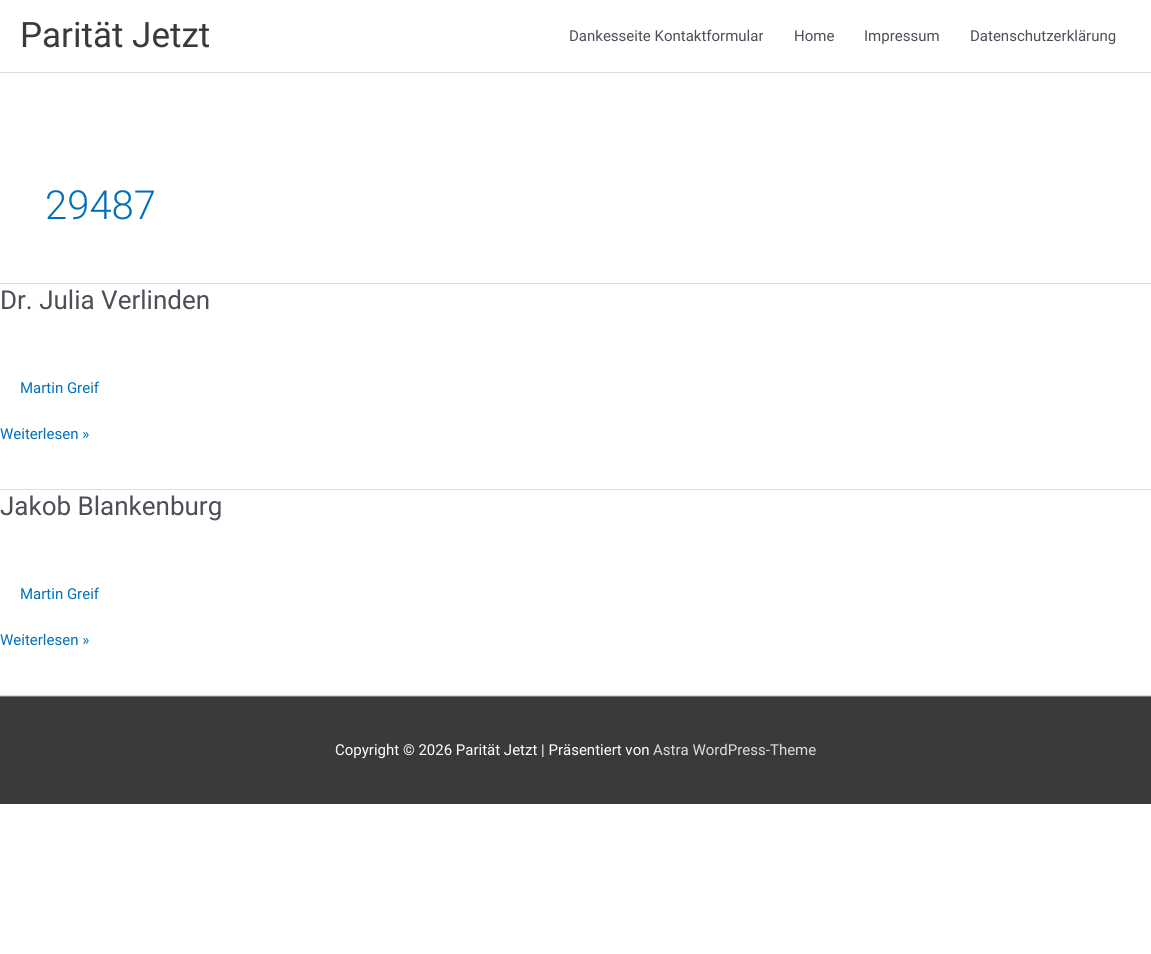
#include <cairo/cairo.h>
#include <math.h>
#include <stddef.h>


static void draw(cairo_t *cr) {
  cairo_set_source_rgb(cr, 1, 1, 1);
  cairo_paint(cr);
  cairo_set_source_rgb(cr, 221 / 255.0, 221 / 255.0, 221 / 255.0);
  cairo_rectangle(cr, 0, 72, 1151, 1);
  cairo_fill(cr);
  cairo_rectangle(cr, 0, 283, 1151, 1);
  cairo_fill(cr);
  cairo_rectangle(cr, 0, 489, 1151, 1);
  cairo_fill(cr);
  cairo_rectangle(cr, 0, 695, 1151, 1);
  cairo_fill(cr);
  cairo_set_source_rgb(cr, 122 / 255.0, 122 / 255.0, 122 / 255.0);
  cairo_rectangle(cr, 0, 696, 1151, 1);
  cairo_fill(cr);
  cairo_set_source_rgb(cr, 58 / 255.0, 58 / 255.0, 58 / 255.0);
  cairo_rectangle(cr, 0, 697, 1151, 107);
  cairo_fill(cr);
  cairo_select_font_face(cr, "Roboto", CAIRO_FONT_SLANT_NORMAL, CAIRO_FONT_WEIGHT_NORMAL);
  cairo_set_font_size(cr, 35);
  cairo_move_to(cr, 20, 47);
  cairo_show_text(cr, "Parität Jetzt");
  cairo_set_font_size(cr, 15);
  cairo_set_source_rgb(cr, 75 / 255.0, 79 / 255.0, 88 / 255.0);
  cairo_move_to(cr, 569, 41);
  cairo_show_text(cr, "Dankesseite Kontaktformular");
  cairo_move_to(cr, 794, 41);
  cairo_show_text(cr, "Home");
  cairo_move_to(cr, 864, 41);
  cairo_show_text(cr, "Impressum");
  cairo_move_to(cr, 970, 41);
  cairo_show_text(cr, "Datenschutzerklärung");
  cairo_select_font_face(cr, "Roboto Light", CAIRO_FONT_SLANT_NORMAL, CAIRO_FONT_WEIGHT_NORMAL);
  cairo_set_font_size(cr, 40);
  cairo_set_source_rgb(cr, 1 / 255.0, 112 / 255.0, 185 / 255.0);
  cairo_move_to(cr, 45, 219);
  cairo_show_text(cr, "29487");
  cairo_select_font_face(cr, "Roboto", CAIRO_FONT_SLANT_NORMAL, CAIRO_FONT_WEIGHT_NORMAL);
  cairo_set_font_size(cr, 26);
  cairo_set_source_rgb(cr, 75 / 255.0, 79 / 255.0, 88 / 255.0);
  cairo_move_to(cr, 0, 309);
  cairo_show_text(cr, "Dr. Julia Verlinden");
  cairo_set_font_size(cr, 15);
  cairo_set_source_rgb(cr, 1 / 255.0, 112 / 255.0, 185 / 255.0);
  cairo_move_to(cr, 20, 393);
  cairo_show_text(cr, "Martin Greif");
  cairo_move_to(cr, 0, 439);
  cairo_show_text(cr, "Weiterlesen »");
  cairo_set_font_size(cr, 26);
  cairo_set_source_rgb(cr, 75 / 255.0, 79 / 255.0, 88 / 255.0);
  cairo_move_to(cr, 0, 515);
  cairo_show_text(cr, "Jakob Blankenburg");
  cairo_set_font_size(cr, 15);
  cairo_set_source_rgb(cr, 1 / 255.0, 112 / 255.0, 185 / 255.0);
  cairo_move_to(cr, 20, 599);
  cairo_show_text(cr, "Martin Greif");
  cairo_move_to(cr, 0, 645);
  cairo_show_text(cr, "Weiterlesen »");
  cairo_set_source_rgb(cr, 1, 1, 1);
  cairo_move_to(cr, 335, 755);
  cairo_show_text(cr, "Copyright © 2026 Parität Jetzt | Präsentiert von");
  cairo_set_source_rgb(cr, 221 / 255.0, 221 / 255.0, 221 / 255.0);
  cairo_move_to(cr, 653, 755);
  cairo_show_text(cr, "Astra WordPress-Theme");
}

int main(void) {
  cairo_surface_t *surface = cairo_image_surface_create(CAIRO_FORMAT_RGB24, 1151, 954);
  cairo_t *cr = cairo_create(surface);
  cairo_font_options_t *options = cairo_font_options_create();
  cairo_font_options_set_hint_metrics(options, CAIRO_HINT_METRICS_OFF);
  cairo_font_options_set_hint_style(options, CAIRO_HINT_STYLE_NONE);
  cairo_set_font_options(cr, options);
  cairo_set_miter_limit(cr, 4);
  draw(cr);
  cairo_surface_write_to_png(surface, "out.png");
  cairo_font_options_destroy(options);
  cairo_destroy(cr);
  cairo_surface_destroy(surface);
  return 0;
}
